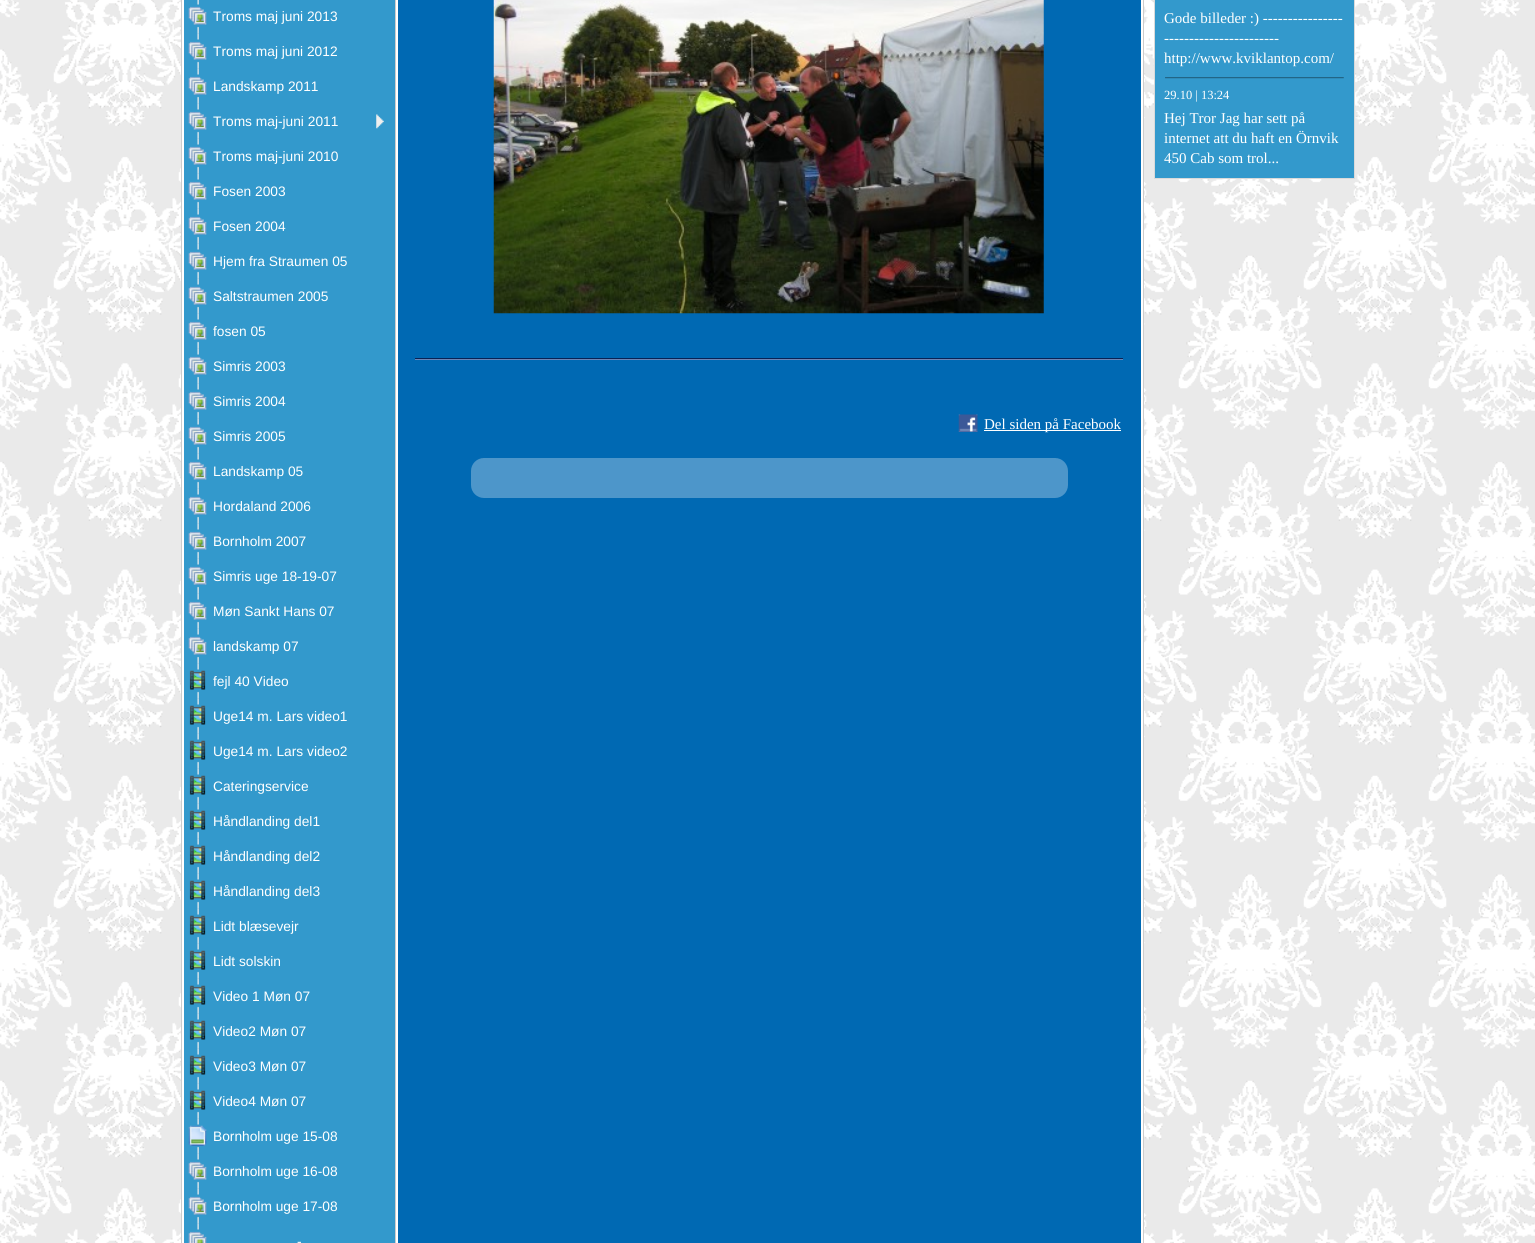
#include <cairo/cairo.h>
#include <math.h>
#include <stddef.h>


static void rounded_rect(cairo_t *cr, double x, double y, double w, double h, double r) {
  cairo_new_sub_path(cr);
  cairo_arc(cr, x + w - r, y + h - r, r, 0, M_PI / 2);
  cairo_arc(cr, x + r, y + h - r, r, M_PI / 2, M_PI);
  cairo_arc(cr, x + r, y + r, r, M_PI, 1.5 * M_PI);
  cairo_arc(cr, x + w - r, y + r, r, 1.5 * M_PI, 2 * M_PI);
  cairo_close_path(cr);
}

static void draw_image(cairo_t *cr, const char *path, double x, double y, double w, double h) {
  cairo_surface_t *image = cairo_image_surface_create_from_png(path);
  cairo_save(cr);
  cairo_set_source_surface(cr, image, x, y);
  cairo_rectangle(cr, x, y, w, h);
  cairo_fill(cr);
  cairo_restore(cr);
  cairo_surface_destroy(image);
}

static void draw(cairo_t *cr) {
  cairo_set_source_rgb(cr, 1, 1, 1);
  cairo_paint(cr);
  draw_image(cr, "images/1.png", 0, 0, 1535, 1243);
  cairo_set_source_rgb(cr, 1, 1, 1);
  cairo_rectangle(cr, 182, 0, 961, 1243);
  cairo_fill(cr);
  cairo_set_source_rgb(cr, 204 / 255.0, 204 / 255.0, 204 / 255.0);
  cairo_rectangle(cr, 181, 0, 1, 1243);
  cairo_fill(cr);
  cairo_set_source_rgb(cr, 51 / 255.0, 153 / 255.0, 204 / 255.0);
  cairo_rectangle(cr, 184, 0, 211, 1243);
  cairo_fill(cr);
  draw_image(cr, "images/2.png", 197, 0, 2, 34);
  draw_image(cr, "images/3.png", 188, 6, 19, 19);
  draw_image(cr, "images/4.png", 197, 33, 2, 36);
  draw_image(cr, "images/3.png", 188, 41, 19, 19);
  draw_image(cr, "images/4.png", 197, 68, 2, 36);
  draw_image(cr, "images/5.png", 188, 76, 19, 19);
  draw_image(cr, "images/4.png", 197, 103, 2, 36);
  draw_image(cr, "images/3.png", 188, 111, 19, 19);
  draw_image(cr, "images/6.png", 376, 114, 8, 15);
  draw_image(cr, "images/4.png", 197, 138, 2, 36);
  draw_image(cr, "images/3.png", 188, 146, 19, 19);
  draw_image(cr, "images/4.png", 197, 173, 2, 36);
  draw_image(cr, "images/3.png", 188, 181, 19, 19);
  draw_image(cr, "images/4.png", 197, 208, 2, 36);
  draw_image(cr, "images/3.png", 188, 216, 19, 19);
  draw_image(cr, "images/4.png", 197, 243, 2, 36);
  draw_image(cr, "images/3.png", 188, 251, 19, 19);
  draw_image(cr, "images/4.png", 197, 278, 2, 36);
  draw_image(cr, "images/3.png", 188, 286, 19, 19);
  draw_image(cr, "images/4.png", 197, 313, 2, 36);
  draw_image(cr, "images/3.png", 188, 321, 19, 19);
  draw_image(cr, "images/4.png", 197, 348, 2, 36);
  draw_image(cr, "images/3.png", 188, 356, 19, 19);
  draw_image(cr, "images/4.png", 197, 383, 2, 36);
  draw_image(cr, "images/3.png", 188, 391, 19, 19);
  draw_image(cr, "images/4.png", 197, 418, 2, 36);
  draw_image(cr, "images/3.png", 188, 426, 19, 19);
  draw_image(cr, "images/4.png", 197, 453, 2, 36);
  draw_image(cr, "images/3.png", 188, 461, 19, 19);
  draw_image(cr, "images/4.png", 197, 488, 2, 36);
  draw_image(cr, "images/3.png", 188, 496, 19, 19);
  draw_image(cr, "images/4.png", 197, 523, 2, 36);
  draw_image(cr, "images/3.png", 188, 531, 19, 19);
  draw_image(cr, "images/4.png", 197, 558, 2, 36);
  draw_image(cr, "images/7.png", 188, 566, 19, 19);
  draw_image(cr, "images/4.png", 197, 593, 2, 36);
  draw_image(cr, "images/3.png", 188, 601, 19, 19);
  draw_image(cr, "images/4.png", 197, 628, 2, 36);
  draw_image(cr, "images/3.png", 188, 636, 19, 19);
  draw_image(cr, "images/4.png", 197, 663, 2, 36);
  draw_image(cr, "images/8.png", 189, 670, 17, 20);
  draw_image(cr, "images/4.png", 197, 698, 2, 36);
  draw_image(cr, "images/8.png", 189, 705, 17, 20);
  draw_image(cr, "images/4.png", 197, 733, 2, 36);
  draw_image(cr, "images/8.png", 189, 740, 17, 20);
  draw_image(cr, "images/4.png", 197, 768, 2, 36);
  draw_image(cr, "images/8.png", 189, 775, 17, 20);
  draw_image(cr, "images/4.png", 197, 803, 2, 36);
  draw_image(cr, "images/8.png", 189, 810, 17, 20);
  draw_image(cr, "images/4.png", 197, 838, 2, 36);
  draw_image(cr, "images/8.png", 189, 845, 17, 20);
  draw_image(cr, "images/4.png", 197, 873, 2, 36);
  draw_image(cr, "images/8.png", 189, 880, 17, 20);
  draw_image(cr, "images/4.png", 197, 908, 2, 36);
  draw_image(cr, "images/8.png", 189, 915, 17, 20);
  draw_image(cr, "images/4.png", 197, 943, 2, 36);
  draw_image(cr, "images/9.png", 189, 950, 17, 20);
  draw_image(cr, "images/4.png", 197, 978, 2, 36);
  draw_image(cr, "images/8.png", 189, 985, 17, 20);
  draw_image(cr, "images/4.png", 197, 1013, 2, 36);
  draw_image(cr, "images/8.png", 189, 1020, 17, 20);
  draw_image(cr, "images/4.png", 197, 1048, 2, 36);
  draw_image(cr, "images/8.png", 189, 1055, 17, 20);
  draw_image(cr, "images/4.png", 197, 1083, 2, 36);
  draw_image(cr, "images/8.png", 189, 1090, 17, 20);
  draw_image(cr, "images/4.png", 197, 1118, 2, 36);
  draw_image(cr, "images/10.png", 188, 1125, 19, 21);
  draw_image(cr, "images/4.png", 197, 1153, 2, 36);
  draw_image(cr, "images/3.png", 188, 1161, 19, 19);
  draw_image(cr, "images/4.png", 197, 1188, 2, 36);
  draw_image(cr, "images/3.png", 188, 1196, 19, 19);
  draw_image(cr, "images/11.png", 197, 1223, 2, 7);
  draw_image(cr, "images/12.png", 188, 1231, 19, 12);
  cairo_set_source_rgb(cr, 204 / 255.0, 204 / 255.0, 204 / 255.0);
  cairo_rectangle(cr, 395, 0, 1, 1243);
  cairo_fill(cr);
  cairo_set_source_rgb(cr, 0, 105 / 255.0, 179 / 255.0);
  cairo_rectangle(cr, 398, 0, 743, 1243);
  cairo_fill(cr);
  draw_image(cr, "images/13.png", 493, 0, 551, 314);
  cairo_set_source_rgb(cr, 8 / 255.0, 34 / 255.0, 85 / 255.0);
  cairo_rectangle(cr, 415, 358, 708, 1);
  cairo_fill(cr);
  cairo_set_source_rgb(cr, 108 / 255.0, 134 / 255.0, 184 / 255.0);
  cairo_rectangle(cr, 415, 359, 708, 1);
  cairo_fill(cr);
  draw_image(cr, "images/14.png", 958, 414, 20, 18);
  cairo_set_source_rgb(cr, 1, 1, 1);
  cairo_rectangle(cr, 984, 430, 137, 1);
  cairo_fill(cr);
  cairo_set_source_rgb(cr, 77 / 255.0, 150 / 255.0, 202 / 255.0);
  rounded_rect(cr, 471, 458, 597, 40, 13);
  cairo_fill(cr);
  cairo_set_source_rgb(cr, 204 / 255.0, 204 / 255.0, 204 / 255.0);
  cairo_rectangle(cr, 1143, 0, 1, 1243);
  cairo_fill(cr);
  cairo_set_source_rgb(cr, 51 / 255.0, 153 / 255.0, 204 / 255.0);
  cairo_rectangle(cr, 1154.5, -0.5, 200, 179);
  cairo_fill_preserve(cr);
  cairo_set_source_rgb(cr, 218 / 255.0, 218 / 255.0, 218 / 255.0);
  cairo_set_line_width(cr, 1);
  cairo_stroke(cr);
  draw_image(cr, "images/15.png", 1165, 77, 179, 2);
  cairo_select_font_face(cr, "Liberation Sans", CAIRO_FONT_SLANT_NORMAL, CAIRO_FONT_WEIGHT_NORMAL);
  cairo_set_font_size(cr, 13.75);
  cairo_set_source_rgb(cr, 1, 1, 1);
  cairo_move_to(cr, 213, 21);
  cairo_show_text(cr, "Troms maj juni 2013");
  cairo_move_to(cr, 213, 56);
  cairo_show_text(cr, "Troms maj juni 2012");
  cairo_move_to(cr, 213, 91);
  cairo_show_text(cr, "Landskamp 2011");
  cairo_move_to(cr, 213, 126);
  cairo_show_text(cr, "Troms maj-juni 2011");
  cairo_move_to(cr, 213, 161);
  cairo_show_text(cr, "Troms maj-juni 2010");
  cairo_move_to(cr, 213, 196);
  cairo_show_text(cr, "Fosen 2003");
  cairo_move_to(cr, 213, 231);
  cairo_show_text(cr, "Fosen 2004");
  cairo_move_to(cr, 213, 266);
  cairo_show_text(cr, "Hjem fra Straumen 05");
  cairo_move_to(cr, 213, 301);
  cairo_show_text(cr, "Saltstraumen 2005");
  cairo_move_to(cr, 213, 336);
  cairo_show_text(cr, "fosen 05");
  cairo_move_to(cr, 213, 371);
  cairo_show_text(cr, "Simris 2003");
  cairo_move_to(cr, 213, 406);
  cairo_show_text(cr, "Simris 2004");
  cairo_move_to(cr, 213, 441);
  cairo_show_text(cr, "Simris 2005");
  cairo_move_to(cr, 213, 476);
  cairo_show_text(cr, "Landskamp 05");
  cairo_move_to(cr, 213, 511);
  cairo_show_text(cr, "Hordaland 2006");
  cairo_move_to(cr, 213, 546);
  cairo_show_text(cr, "Bornholm 2007");
  cairo_move_to(cr, 213, 581);
  cairo_show_text(cr, "Simris uge 18-19-07");
  cairo_move_to(cr, 213, 616);
  cairo_show_text(cr, "Møn Sankt Hans 07");
  cairo_move_to(cr, 213, 651);
  cairo_show_text(cr, "landskamp 07");
  cairo_move_to(cr, 213, 686);
  cairo_show_text(cr, "fejl 40 Video");
  cairo_move_to(cr, 213, 721);
  cairo_show_text(cr, "Uge14 m. Lars video1");
  cairo_move_to(cr, 213, 756);
  cairo_show_text(cr, "Uge14 m. Lars video2");
  cairo_move_to(cr, 213, 791);
  cairo_show_text(cr, "Cateringservice");
  cairo_move_to(cr, 213, 826);
  cairo_show_text(cr, "Håndlanding del1");
  cairo_move_to(cr, 213, 861);
  cairo_show_text(cr, "Håndlanding del2");
  cairo_move_to(cr, 213, 896);
  cairo_show_text(cr, "Håndlanding del3");
  cairo_move_to(cr, 213, 931);
  cairo_show_text(cr, "Lidt blæsevejr");
  cairo_move_to(cr, 213, 966);
  cairo_show_text(cr, "Lidt solskin");
  cairo_move_to(cr, 213, 1001);
  cairo_show_text(cr, "Video 1 Møn 07");
  cairo_move_to(cr, 213, 1036);
  cairo_show_text(cr, "Video2 Møn 07");
  cairo_move_to(cr, 213, 1071);
  cairo_show_text(cr, "Video3 Møn 07");
  cairo_move_to(cr, 213, 1106);
  cairo_show_text(cr, "Video4 Møn 07");
  cairo_move_to(cr, 213, 1141);
  cairo_show_text(cr, "Bornholm uge 15-08");
  cairo_move_to(cr, 213, 1176);
  cairo_show_text(cr, "Bornholm uge 16-08");
  cairo_move_to(cr, 213, 1211);
  cairo_show_text(cr, "Bornholm uge 17-08");
  cairo_move_to(cr, 297, 1246);
  cairo_show_text(cr, "-");
  cairo_select_font_face(cr, "Liberation Serif", CAIRO_FONT_SLANT_NORMAL, CAIRO_FONT_WEIGHT_NORMAL);
  cairo_set_font_size(cr, 15);
  cairo_move_to(cr, 984, 429);
  cairo_show_text(cr, "Del siden på Facebook");
  cairo_move_to(cr, 1164, 23);
  cairo_show_text(cr, "Gode billeder :) ----------------");
  cairo_move_to(cr, 1164, 43);
  cairo_show_text(cr, "-----------------------");
  cairo_move_to(cr, 1164, 63);
  cairo_show_text(cr, "http://www.kviklantop.com/");
  cairo_set_font_size(cr, 12.5);
  cairo_move_to(cr, 1164, 99);
  cairo_show_text(cr, "29.10 | 13:24");
  cairo_set_font_size(cr, 15);
  cairo_move_to(cr, 1164, 123);
  cairo_show_text(cr, "Hej Tror Jag har sett på");
  cairo_move_to(cr, 1164, 143);
  cairo_show_text(cr, "internet att du haft en Örnvik");
  cairo_move_to(cr, 1164, 163);
  cairo_show_text(cr, "450 Cab som trol...");
}

int main(void) {
  cairo_surface_t *surface = cairo_image_surface_create(CAIRO_FORMAT_RGB24, 1535, 1243);
  cairo_t *cr = cairo_create(surface);
  cairo_font_options_t *options = cairo_font_options_create();
  cairo_font_options_set_hint_metrics(options, CAIRO_HINT_METRICS_OFF);
  cairo_font_options_set_hint_style(options, CAIRO_HINT_STYLE_NONE);
  cairo_set_font_options(cr, options);
  cairo_set_miter_limit(cr, 4);
  draw(cr);
  cairo_surface_write_to_png(surface, "out.png");
  cairo_font_options_destroy(options);
  cairo_destroy(cr);
  cairo_surface_destroy(surface);
  return 0;
}
